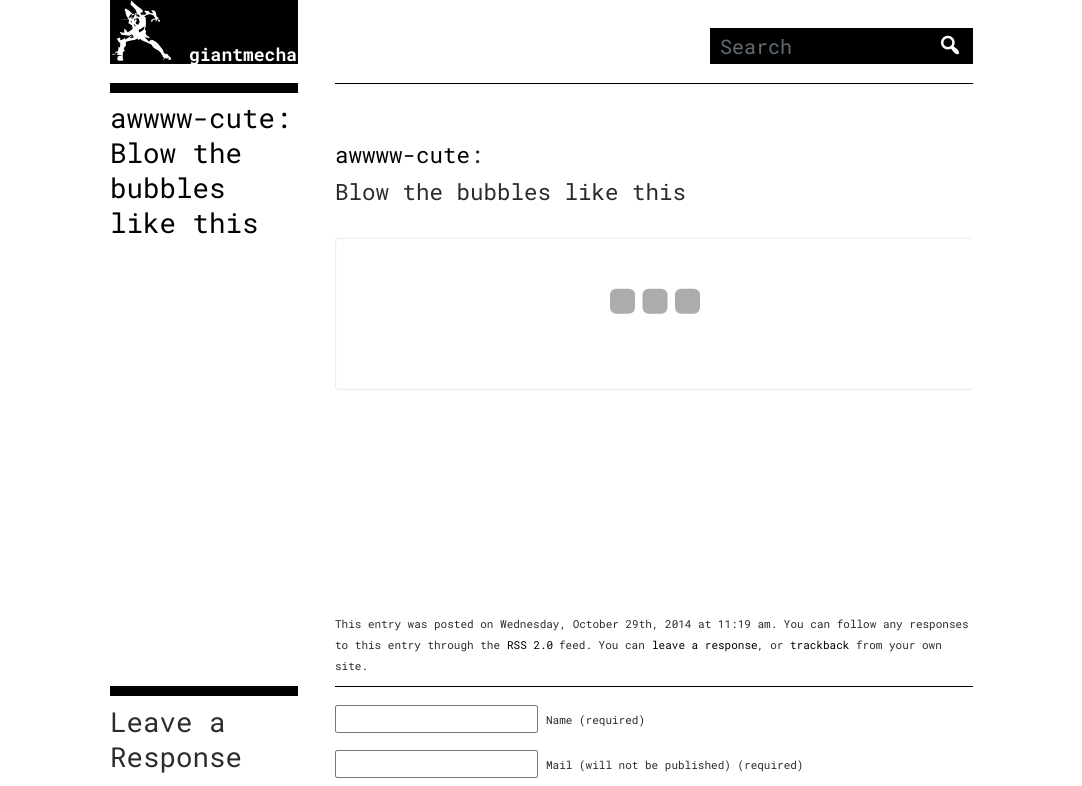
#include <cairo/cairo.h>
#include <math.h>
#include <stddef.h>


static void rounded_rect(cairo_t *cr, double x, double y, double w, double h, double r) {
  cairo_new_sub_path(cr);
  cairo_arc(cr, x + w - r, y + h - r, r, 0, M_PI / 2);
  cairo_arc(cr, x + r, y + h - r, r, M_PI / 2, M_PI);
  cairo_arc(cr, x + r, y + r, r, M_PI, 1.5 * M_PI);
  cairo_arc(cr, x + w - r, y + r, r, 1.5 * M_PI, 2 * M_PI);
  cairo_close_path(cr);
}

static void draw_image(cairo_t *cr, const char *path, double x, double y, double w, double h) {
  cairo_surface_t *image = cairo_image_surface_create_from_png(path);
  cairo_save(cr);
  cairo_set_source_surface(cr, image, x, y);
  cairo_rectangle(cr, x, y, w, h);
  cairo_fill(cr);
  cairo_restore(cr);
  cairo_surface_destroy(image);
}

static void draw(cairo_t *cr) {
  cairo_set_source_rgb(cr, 1, 1, 1);
  cairo_paint(cr);
  cairo_set_source_rgb(cr, 0, 0, 0);
  cairo_rectangle(cr, 110, 0, 188, 64);
  cairo_fill(cr);
  draw_image(cr, "images/1.png", 112, 0, 59, 61);
  cairo_rectangle(cr, 710, 28, 263, 36);
  cairo_fill(cr);
  draw_image(cr, "images/2.png", 941, 35, 18, 20);
  cairo_rectangle(cr, 110, 83, 188, 10);
  cairo_fill(cr);
  cairo_rectangle(cr, 335, 83, 638, 1);
  cairo_fill(cr);
  draw_image(cr, "images/3.png", 335, 237, 638, 153);
  cairo_rectangle(cr, 110, 686, 188, 10);
  cairo_fill(cr);
  cairo_rectangle(cr, 335, 686, 638, 1);
  cairo_fill(cr);
  rounded_rect(cr, 335.5, 705.5, 202, 27, 2);
  cairo_set_source_rgb(cr, 118 / 255.0, 118 / 255.0, 118 / 255.0);
  cairo_set_line_width(cr, 1);
  cairo_stroke(cr);
  rounded_rect(cr, 335.5, 750.5, 202, 27, 2);
  cairo_stroke(cr);
  cairo_select_font_face(cr, "Roboto Mono", CAIRO_FONT_SLANT_NORMAL, CAIRO_FONT_WEIGHT_BOLD);
  cairo_set_font_size(cr, 18);
  cairo_set_source_rgb(cr, 1, 1, 1);
  cairo_move_to(cr, 189, 61);
  cairo_show_text(cr, "giantmecha");
  cairo_select_font_face(cr, "Roboto Mono", CAIRO_FONT_SLANT_NORMAL, CAIRO_FONT_WEIGHT_NORMAL);
  cairo_set_font_size(cr, 20);
  cairo_set_source_rgb(cr, 99 / 255.0, 108 / 255.0, 114 / 255.0);
  cairo_move_to(cr, 720, 54);
  cairo_show_text(cr, "Search");
  cairo_set_font_size(cr, 27.5);
  cairo_set_source_rgb(cr, 0, 0, 0);
  cairo_move_to(cr, 110, 128);
  cairo_show_text(cr, "awwww-cute:");
  cairo_move_to(cr, 110, 163);
  cairo_show_text(cr, "Blow the");
  cairo_move_to(cr, 110, 198);
  cairo_show_text(cr, "bubbles");
  cairo_move_to(cr, 110, 233);
  cairo_show_text(cr, "like this");
  cairo_set_font_size(cr, 22.5);
  cairo_move_to(cr, 335, 163);
  cairo_show_text(cr, "awwww-cute");
  cairo_set_source_rgb(cr, 41 / 255.0, 43 / 255.0, 44 / 255.0);
  cairo_move_to(cr, 470, 163);
  cairo_show_text(cr, ":");
  cairo_move_to(cr, 335, 200);
  cairo_show_text(cr, "Blow the bubbles like this");
  cairo_set_font_size(cr, 11);
  cairo_move_to(cr, 335, 628);
  cairo_show_text(cr, "This entry was posted on Wednesday, October 29th, 2014 at 11:19 am. You can follow any responses");
  cairo_move_to(cr, 335, 649);
  cairo_show_text(cr, "to this entry through the");
  cairo_set_source_rgb(cr, 0, 0, 0);
  cairo_move_to(cr, 507, 649);
  cairo_show_text(cr, "RSS 2.0");
  cairo_set_source_rgb(cr, 41 / 255.0, 43 / 255.0, 44 / 255.0);
  cairo_move_to(cr, 559, 649);
  cairo_show_text(cr, "feed. You can");
  cairo_set_source_rgb(cr, 0, 0, 0);
  cairo_move_to(cr, 652, 649);
  cairo_show_text(cr, "leave a response");
  cairo_set_source_rgb(cr, 41 / 255.0, 43 / 255.0, 44 / 255.0);
  cairo_move_to(cr, 757, 649);
  cairo_show_text(cr, ", or");
  cairo_set_source_rgb(cr, 0, 0, 0);
  cairo_move_to(cr, 790, 649);
  cairo_show_text(cr, "trackback");
  cairo_set_source_rgb(cr, 41 / 255.0, 43 / 255.0, 44 / 255.0);
  cairo_move_to(cr, 856, 649);
  cairo_show_text(cr, "from your own");
  cairo_move_to(cr, 335, 670);
  cairo_show_text(cr, "site.");
  cairo_set_font_size(cr, 27.5);
  cairo_move_to(cr, 110, 732);
  cairo_show_text(cr, "Leave a");
  cairo_move_to(cr, 110, 767);
  cairo_show_text(cr, "Response");
  cairo_set_font_size(cr, 11);
  cairo_move_to(cr, 546, 724);
  cairo_show_text(cr, "Name (required)");
  cairo_move_to(cr, 546, 769);
  cairo_show_text(cr, "Mail (will not be published) (required)");
}

int main(void) {
  cairo_surface_t *surface = cairo_image_surface_create(CAIRO_FORMAT_RGB24, 1082, 786);
  cairo_t *cr = cairo_create(surface);
  cairo_font_options_t *options = cairo_font_options_create();
  cairo_font_options_set_hint_metrics(options, CAIRO_HINT_METRICS_OFF);
  cairo_font_options_set_hint_style(options, CAIRO_HINT_STYLE_NONE);
  cairo_set_font_options(cr, options);
  cairo_set_miter_limit(cr, 4);
  draw(cr);
  cairo_surface_write_to_png(surface, "out.png");
  cairo_font_options_destroy(options);
  cairo_destroy(cr);
  cairo_surface_destroy(surface);
  return 0;
}
